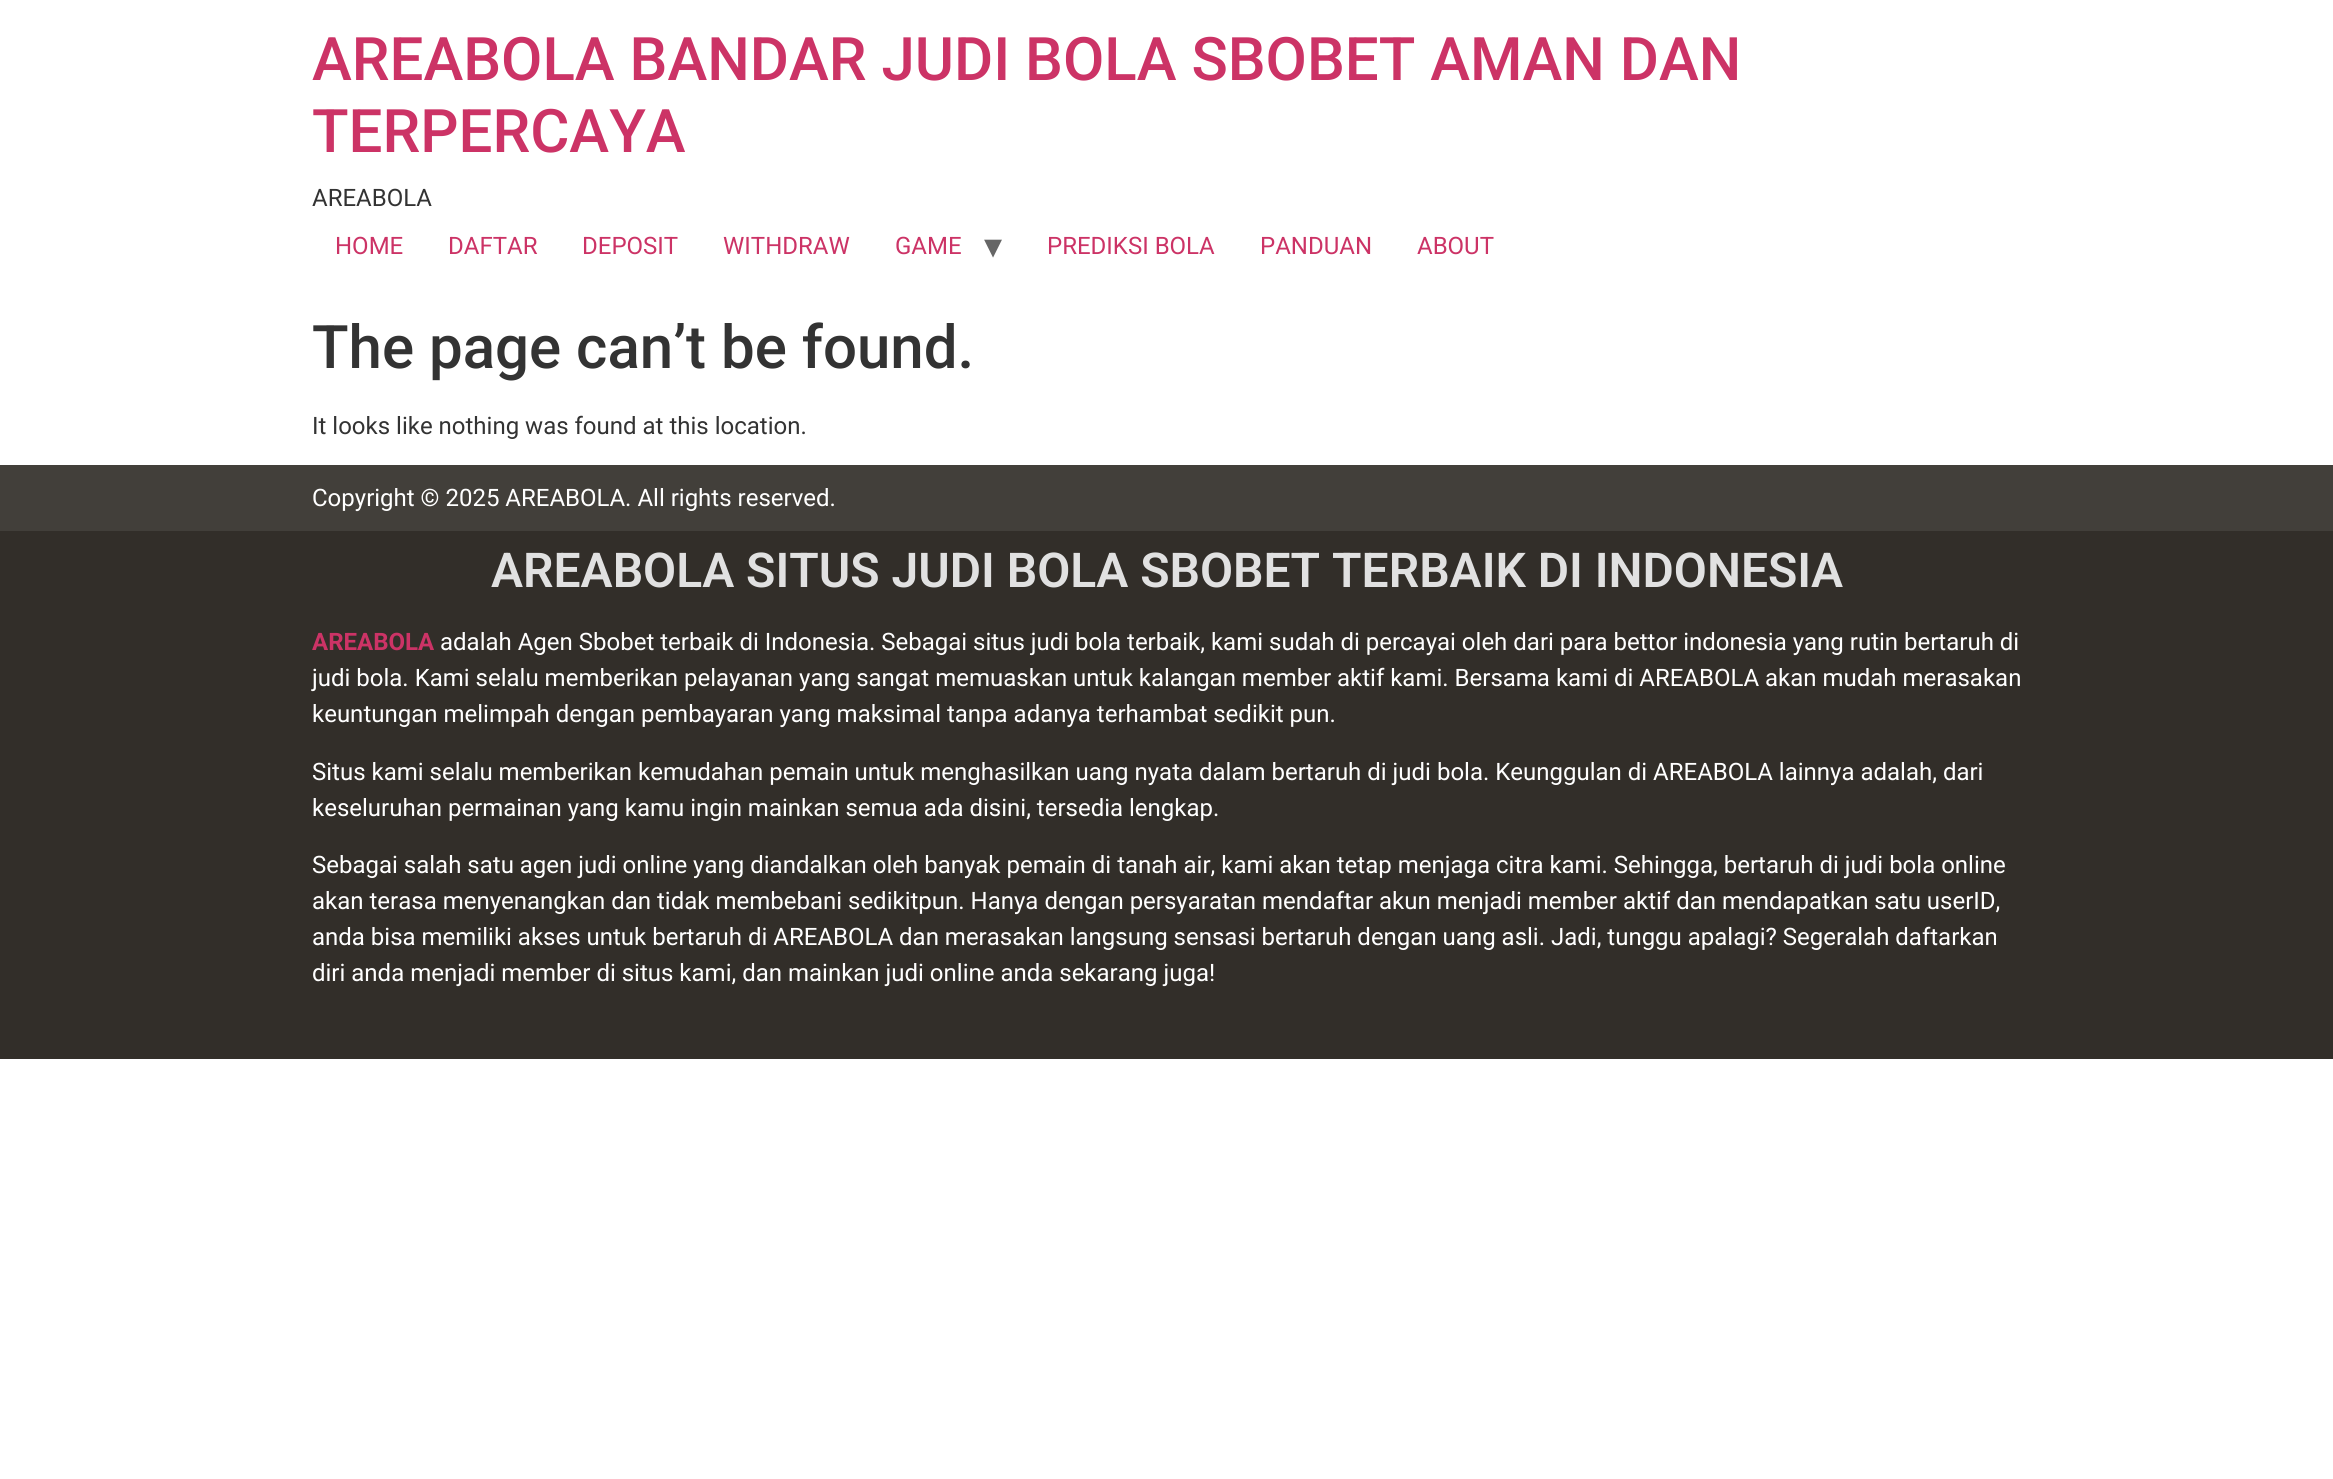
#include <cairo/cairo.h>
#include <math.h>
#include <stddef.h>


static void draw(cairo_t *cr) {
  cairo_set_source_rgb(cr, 1, 1, 1);
  cairo_paint(cr);
  cairo_set_source_rgb(cr, 66 / 255.0, 63 / 255.0, 58 / 255.0);
  cairo_rectangle(cr, 0, 465, 2333, 66);
  cairo_fill(cr);
  cairo_set_source_rgb(cr, 50 / 255.0, 46 / 255.0, 41 / 255.0);
  cairo_rectangle(cr, 0, 531, 2333, 528);
  cairo_fill(cr);
  cairo_select_font_face(cr, "Roboto Medium", CAIRO_FONT_SLANT_NORMAL, CAIRO_FONT_WEIGHT_NORMAL);
  cairo_set_font_size(cr, 60);
  cairo_set_source_rgb(cr, 204 / 255.0, 51 / 255.0, 102 / 255.0);
  cairo_move_to(cr, 312, 80);
  cairo_show_text(cr, "AREABOLA BANDAR JUDI BOLA SBOBET AMAN DAN");
  cairo_move_to(cr, 312, 152);
  cairo_show_text(cr, "TERPERCAYA");
  cairo_select_font_face(cr, "Roboto", CAIRO_FONT_SLANT_NORMAL, CAIRO_FONT_WEIGHT_NORMAL);
  cairo_set_font_size(cr, 24);
  cairo_set_source_rgb(cr, 51 / 255.0, 51 / 255.0, 51 / 255.0);
  cairo_move_to(cr, 312, 206);
  cairo_show_text(cr, "AREABOLA");
  cairo_set_source_rgb(cr, 204 / 255.0, 51 / 255.0, 102 / 255.0);
  cairo_move_to(cr, 335, 254);
  cairo_show_text(cr, "HOME");
  cairo_move_to(cr, 448, 254);
  cairo_show_text(cr, "DAFTAR");
  cairo_move_to(cr, 582, 254);
  cairo_show_text(cr, "DEPOSIT");
  cairo_move_to(cr, 723, 254);
  cairo_show_text(cr, "WITHDRAW");
  cairo_move_to(cr, 895, 254);
  cairo_show_text(cr, "GAME");
  cairo_select_font_face(cr, "DejaVu Sans", CAIRO_FONT_SLANT_NORMAL, CAIRO_FONT_WEIGHT_NORMAL);
  cairo_set_font_size(cr, 36);
  cairo_set_source_rgb(cr, 102 / 255.0, 102 / 255.0, 102 / 255.0);
  cairo_move_to(cr, 984, 258);
  cairo_show_text(cr, "▾");
  cairo_select_font_face(cr, "Roboto", CAIRO_FONT_SLANT_NORMAL, CAIRO_FONT_WEIGHT_NORMAL);
  cairo_set_font_size(cr, 24);
  cairo_set_source_rgb(cr, 204 / 255.0, 51 / 255.0, 102 / 255.0);
  cairo_move_to(cr, 1047, 254);
  cairo_show_text(cr, "PREDIKSI BOLA");
  cairo_move_to(cr, 1260, 254);
  cairo_show_text(cr, "PANDUAN");
  cairo_move_to(cr, 1417, 254);
  cairo_show_text(cr, "ABOUT");
  cairo_select_font_face(cr, "Roboto Medium", CAIRO_FONT_SLANT_NORMAL, CAIRO_FONT_WEIGHT_NORMAL);
  cairo_set_font_size(cr, 60);
  cairo_set_source_rgb(cr, 51 / 255.0, 51 / 255.0, 51 / 255.0);
  cairo_move_to(cr, 312, 368);
  cairo_show_text(cr, "The page can’t be found.");
  cairo_select_font_face(cr, "Roboto", CAIRO_FONT_SLANT_NORMAL, CAIRO_FONT_WEIGHT_NORMAL);
  cairo_set_font_size(cr, 24);
  cairo_move_to(cr, 312, 434);
  cairo_show_text(cr, "It looks like nothing was found at this location.");
  cairo_set_source_rgb(cr, 1, 1, 1);
  cairo_move_to(cr, 312, 506);
  cairo_show_text(cr, "Copyright © 2025 AREABOLA. All rights reserved.");
  cairo_select_font_face(cr, "Roboto SemiBold", CAIRO_FONT_SLANT_NORMAL, CAIRO_FONT_WEIGHT_NORMAL);
  cairo_set_font_size(cr, 48);
  cairo_set_source_rgb(cr, 225 / 255.0, 225 / 255.0, 225 / 255.0);
  cairo_move_to(cr, 491, 587);
  cairo_show_text(cr, "AREABOLA SITUS JUDI BOLA SBOBET TERBAIK DI INDONESIA");
  cairo_select_font_face(cr, "Roboto", CAIRO_FONT_SLANT_NORMAL, CAIRO_FONT_WEIGHT_BOLD);
  cairo_set_font_size(cr, 24);
  cairo_set_source_rgb(cr, 204 / 255.0, 51 / 255.0, 102 / 255.0);
  cairo_move_to(cr, 312, 650);
  cairo_show_text(cr, "AREABOLA");
  cairo_select_font_face(cr, "Roboto", CAIRO_FONT_SLANT_NORMAL, CAIRO_FONT_WEIGHT_NORMAL);
  cairo_set_source_rgb(cr, 1, 1, 1);
  cairo_move_to(cr, 440, 650);
  cairo_show_text(cr, "adalah Agen Sbobet terbaik di Indonesia. Sebagai situs judi bola terbaik, kami sudah di percayai oleh dari para bettor indonesia yang rutin bertaruh di");
  cairo_move_to(cr, 312, 686);
  cairo_show_text(cr, "judi bola. Kami selalu memberikan pelayanan yang sangat memuaskan untuk kalangan member aktif kami. Bersama kami di AREABOLA akan mudah merasakan");
  cairo_move_to(cr, 312, 722);
  cairo_show_text(cr, "keuntungan melimpah dengan pembayaran yang maksimal tanpa adanya terhambat sedikit pun.");
  cairo_move_to(cr, 312, 780);
  cairo_show_text(cr, "Situs kami selalu memberikan kemudahan pemain untuk menghasilkan uang nyata dalam bertaruh di judi bola. Keunggulan di AREABOLA lainnya adalah, dari");
  cairo_move_to(cr, 312, 816);
  cairo_show_text(cr, "keseluruhan permainan yang kamu ingin mainkan semua ada disini, tersedia lengkap.");
  cairo_move_to(cr, 312, 873);
  cairo_show_text(cr, "Sebagai salah satu agen judi online yang diandalkan oleh banyak pemain di tanah air, kami akan tetap menjaga citra kami. Sehingga, bertaruh di judi bola online");
  cairo_move_to(cr, 312, 909);
  cairo_show_text(cr, "akan terasa menyenangkan dan tidak membebani sedikitpun. Hanya dengan persyaratan mendaftar akun menjadi member aktif dan mendapatkan satu userID,");
  cairo_move_to(cr, 312, 945);
  cairo_show_text(cr, "anda bisa memiliki akses untuk bertaruh di AREABOLA dan merasakan langsung sensasi bertaruh dengan uang asli. Jadi, tunggu apalagi? Segeralah daftarkan");
  cairo_move_to(cr, 312, 981);
  cairo_show_text(cr, "diri anda menjadi member di situs kami, dan mainkan judi online anda sekarang juga!");
}

int main(void) {
  cairo_surface_t *surface = cairo_image_surface_create(CAIRO_FORMAT_RGB24, 2333, 1479);
  cairo_t *cr = cairo_create(surface);
  cairo_font_options_t *options = cairo_font_options_create();
  cairo_font_options_set_hint_metrics(options, CAIRO_HINT_METRICS_OFF);
  cairo_font_options_set_hint_style(options, CAIRO_HINT_STYLE_NONE);
  cairo_set_font_options(cr, options);
  cairo_set_miter_limit(cr, 4);
  draw(cr);
  cairo_surface_write_to_png(surface, "out.png");
  cairo_font_options_destroy(options);
  cairo_destroy(cr);
  cairo_surface_destroy(surface);
  return 0;
}
